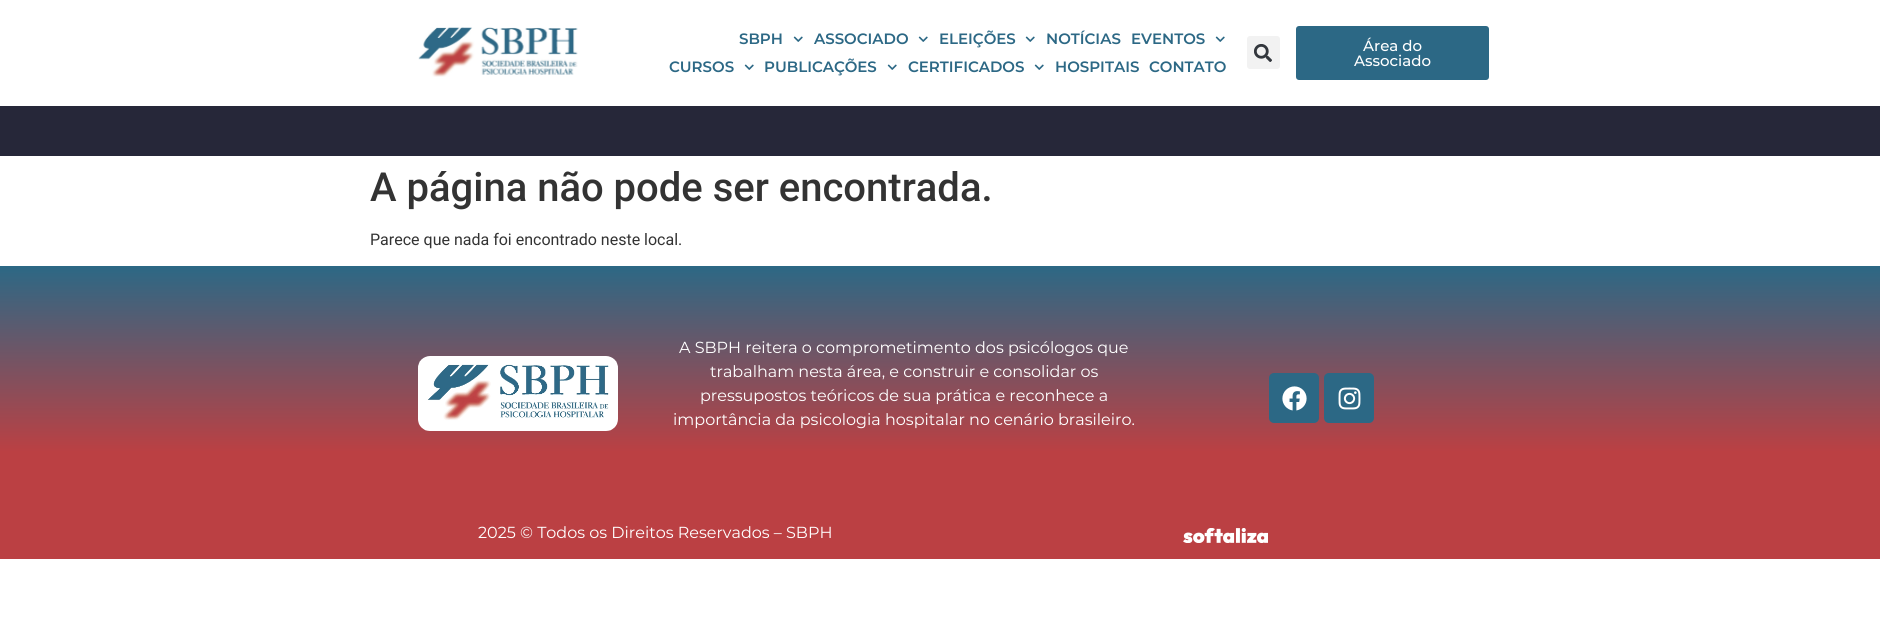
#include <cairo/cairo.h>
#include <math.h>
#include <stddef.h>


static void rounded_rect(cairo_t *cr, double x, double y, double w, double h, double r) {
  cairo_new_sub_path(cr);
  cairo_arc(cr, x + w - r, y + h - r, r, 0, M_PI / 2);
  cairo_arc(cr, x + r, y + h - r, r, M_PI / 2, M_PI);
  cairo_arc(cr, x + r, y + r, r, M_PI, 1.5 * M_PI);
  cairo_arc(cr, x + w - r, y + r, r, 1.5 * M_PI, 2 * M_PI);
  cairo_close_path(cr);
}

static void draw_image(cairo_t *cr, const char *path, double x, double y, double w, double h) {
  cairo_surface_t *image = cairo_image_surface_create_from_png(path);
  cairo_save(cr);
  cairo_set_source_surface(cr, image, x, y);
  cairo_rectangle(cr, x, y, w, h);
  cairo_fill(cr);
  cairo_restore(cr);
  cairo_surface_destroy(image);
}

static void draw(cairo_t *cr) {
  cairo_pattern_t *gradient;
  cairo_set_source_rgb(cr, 1, 1, 1);
  cairo_paint(cr);
  draw_image(cr, "images/1.png", 418, 27, 160, 50);
  draw_image(cr, "images/2.png", 793, 36, 10, 6);
  draw_image(cr, "images/2.png", 918, 36, 10, 6);
  draw_image(cr, "images/2.png", 1025, 36, 10, 6);
  draw_image(cr, "images/2.png", 1215, 36, 10, 6);
  draw_image(cr, "images/2.png", 744, 64, 10, 6);
  draw_image(cr, "images/2.png", 887, 64, 10, 6);
  draw_image(cr, "images/2.png", 1034, 64, 10, 6);
  cairo_set_source_rgb(cr, 242 / 255.0, 242 / 255.0, 242 / 255.0);
  rounded_rect(cr, 1247, 36, 33, 33, 3);
  cairo_fill(cr);
  draw_image(cr, "images/3.png", 1254, 44, 18, 18);
  cairo_set_source_rgb(cr, 44 / 255.0, 104 / 255.0, 133 / 255.0);
  rounded_rect(cr, 1296, 26, 193, 54, 3);
  cairo_fill(cr);
  cairo_set_source_rgb(cr, 38 / 255.0, 39 / 255.0, 57 / 255.0);
  cairo_rectangle(cr, 0, 106, 1880, 50);
  cairo_fill(cr);
  gradient = cairo_pattern_create_linear(940, 266, 940, 521);
  cairo_pattern_add_color_stop_rgba(gradient, 0, 44 / 255.0, 104 / 255.0, 133 / 255.0, 1);
  cairo_pattern_add_color_stop_rgba(gradient, 0.73, 187 / 255.0, 64 / 255.0, 67 / 255.0, 1);
  cairo_set_source(cr, gradient);
  cairo_pattern_destroy(gradient);
  cairo_rectangle(cr, 0, 266, 1880, 255);
  cairo_fill(cr);
  draw_image(cr, "images/4.png", 418, 356, 200, 75);
  cairo_set_source_rgb(cr, 44 / 255.0, 104 / 255.0, 133 / 255.0);
  rounded_rect(cr, 1269, 373, 50, 50, 5);
  cairo_fill(cr);
  draw_image(cr, "images/5.png", 1282, 386, 25, 25);
  rounded_rect(cr, 1324, 373, 50, 50, 5);
  cairo_fill(cr);
  draw_image(cr, "images/6.png", 1338, 387, 23, 23);
  cairo_set_source_rgb(cr, 187 / 255.0, 64 / 255.0, 67 / 255.0);
  cairo_rectangle(cr, 0, 521, 1880, 38);
  cairo_fill(cr);
  draw_image(cr, "images/7.png", 1183, 528, 85, 15);
  cairo_select_font_face(cr, "Montserrat SemiBold", CAIRO_FONT_SLANT_NORMAL, CAIRO_FONT_WEIGHT_NORMAL);
  cairo_set_font_size(cr, 15);
  cairo_set_source_rgb(cr, 44 / 255.0, 104 / 255.0, 133 / 255.0);
  cairo_move_to(cr, 739, 44);
  cairo_show_text(cr, "SBPH");
  cairo_move_to(cr, 814, 44);
  cairo_show_text(cr, "ASSOCIADO");
  cairo_move_to(cr, 939, 44);
  cairo_show_text(cr, "ELEIÇÕES");
  cairo_move_to(cr, 1046, 44);
  cairo_show_text(cr, "NOTÍCIAS");
  cairo_move_to(cr, 1131, 44);
  cairo_show_text(cr, "EVENTOS");
  cairo_move_to(cr, 669, 72);
  cairo_show_text(cr, "CURSOS");
  cairo_move_to(cr, 764, 72);
  cairo_show_text(cr, "PUBLICAÇÕES");
  cairo_move_to(cr, 908, 72);
  cairo_show_text(cr, "CERTIFICADOS");
  cairo_move_to(cr, 1055, 72);
  cairo_show_text(cr, "HOSPITAIS");
  cairo_move_to(cr, 1149, 72);
  cairo_show_text(cr, "CONTATO");
  cairo_select_font_face(cr, "Montserrat Medium", CAIRO_FONT_SLANT_NORMAL, CAIRO_FONT_WEIGHT_NORMAL);
  cairo_set_source_rgb(cr, 1, 1, 1);
  cairo_move_to(cr, 1363, 51);
  cairo_show_text(cr, "Área do");
  cairo_move_to(cr, 1354, 66);
  cairo_show_text(cr, "Associado");
  cairo_select_font_face(cr, "Roboto Medium", CAIRO_FONT_SLANT_NORMAL, CAIRO_FONT_WEIGHT_NORMAL);
  cairo_set_font_size(cr, 40);
  cairo_set_source_rgb(cr, 51 / 255.0, 51 / 255.0, 51 / 255.0);
  cairo_move_to(cr, 370, 201);
  cairo_show_text(cr, "A página não pode ser encontrada.");
  cairo_select_font_face(cr, "Roboto", CAIRO_FONT_SLANT_NORMAL, CAIRO_FONT_WEIGHT_NORMAL);
  cairo_set_font_size(cr, 16);
  cairo_move_to(cr, 370, 245);
  cairo_show_text(cr, "Parece que nada foi encontrado neste local.");
  cairo_select_font_face(cr, "Montserrat", CAIRO_FONT_SLANT_NORMAL, CAIRO_FONT_WEIGHT_NORMAL);
  cairo_set_source_rgb(cr, 1, 1, 1);
  cairo_move_to(cr, 679, 353);
  cairo_show_text(cr, "A SBPH reitera o comprometimento dos psicólogos que");
  cairo_move_to(cr, 710, 377);
  cairo_show_text(cr, "trabalham nesta área, e construir e consolidar os");
  cairo_move_to(cr, 700, 401);
  cairo_show_text(cr, "pressupostos teóricos de sua prática e reconhece a");
  cairo_move_to(cr, 673, 425);
  cairo_show_text(cr, "importância da psicologia hospitalar no cenário brasileiro.");
  cairo_move_to(cr, 478, 538);
  cairo_show_text(cr, "2025 © Todos os Direitos Reservados – SBPH");
}

int main(void) {
  cairo_surface_t *surface = cairo_image_surface_create(CAIRO_FORMAT_RGB24, 1880, 620);
  cairo_t *cr = cairo_create(surface);
  cairo_font_options_t *options = cairo_font_options_create();
  cairo_font_options_set_hint_metrics(options, CAIRO_HINT_METRICS_OFF);
  cairo_font_options_set_hint_style(options, CAIRO_HINT_STYLE_NONE);
  cairo_set_font_options(cr, options);
  cairo_set_miter_limit(cr, 4);
  draw(cr);
  cairo_surface_write_to_png(surface, "out.png");
  cairo_font_options_destroy(options);
  cairo_destroy(cr);
  cairo_surface_destroy(surface);
  return 0;
}
